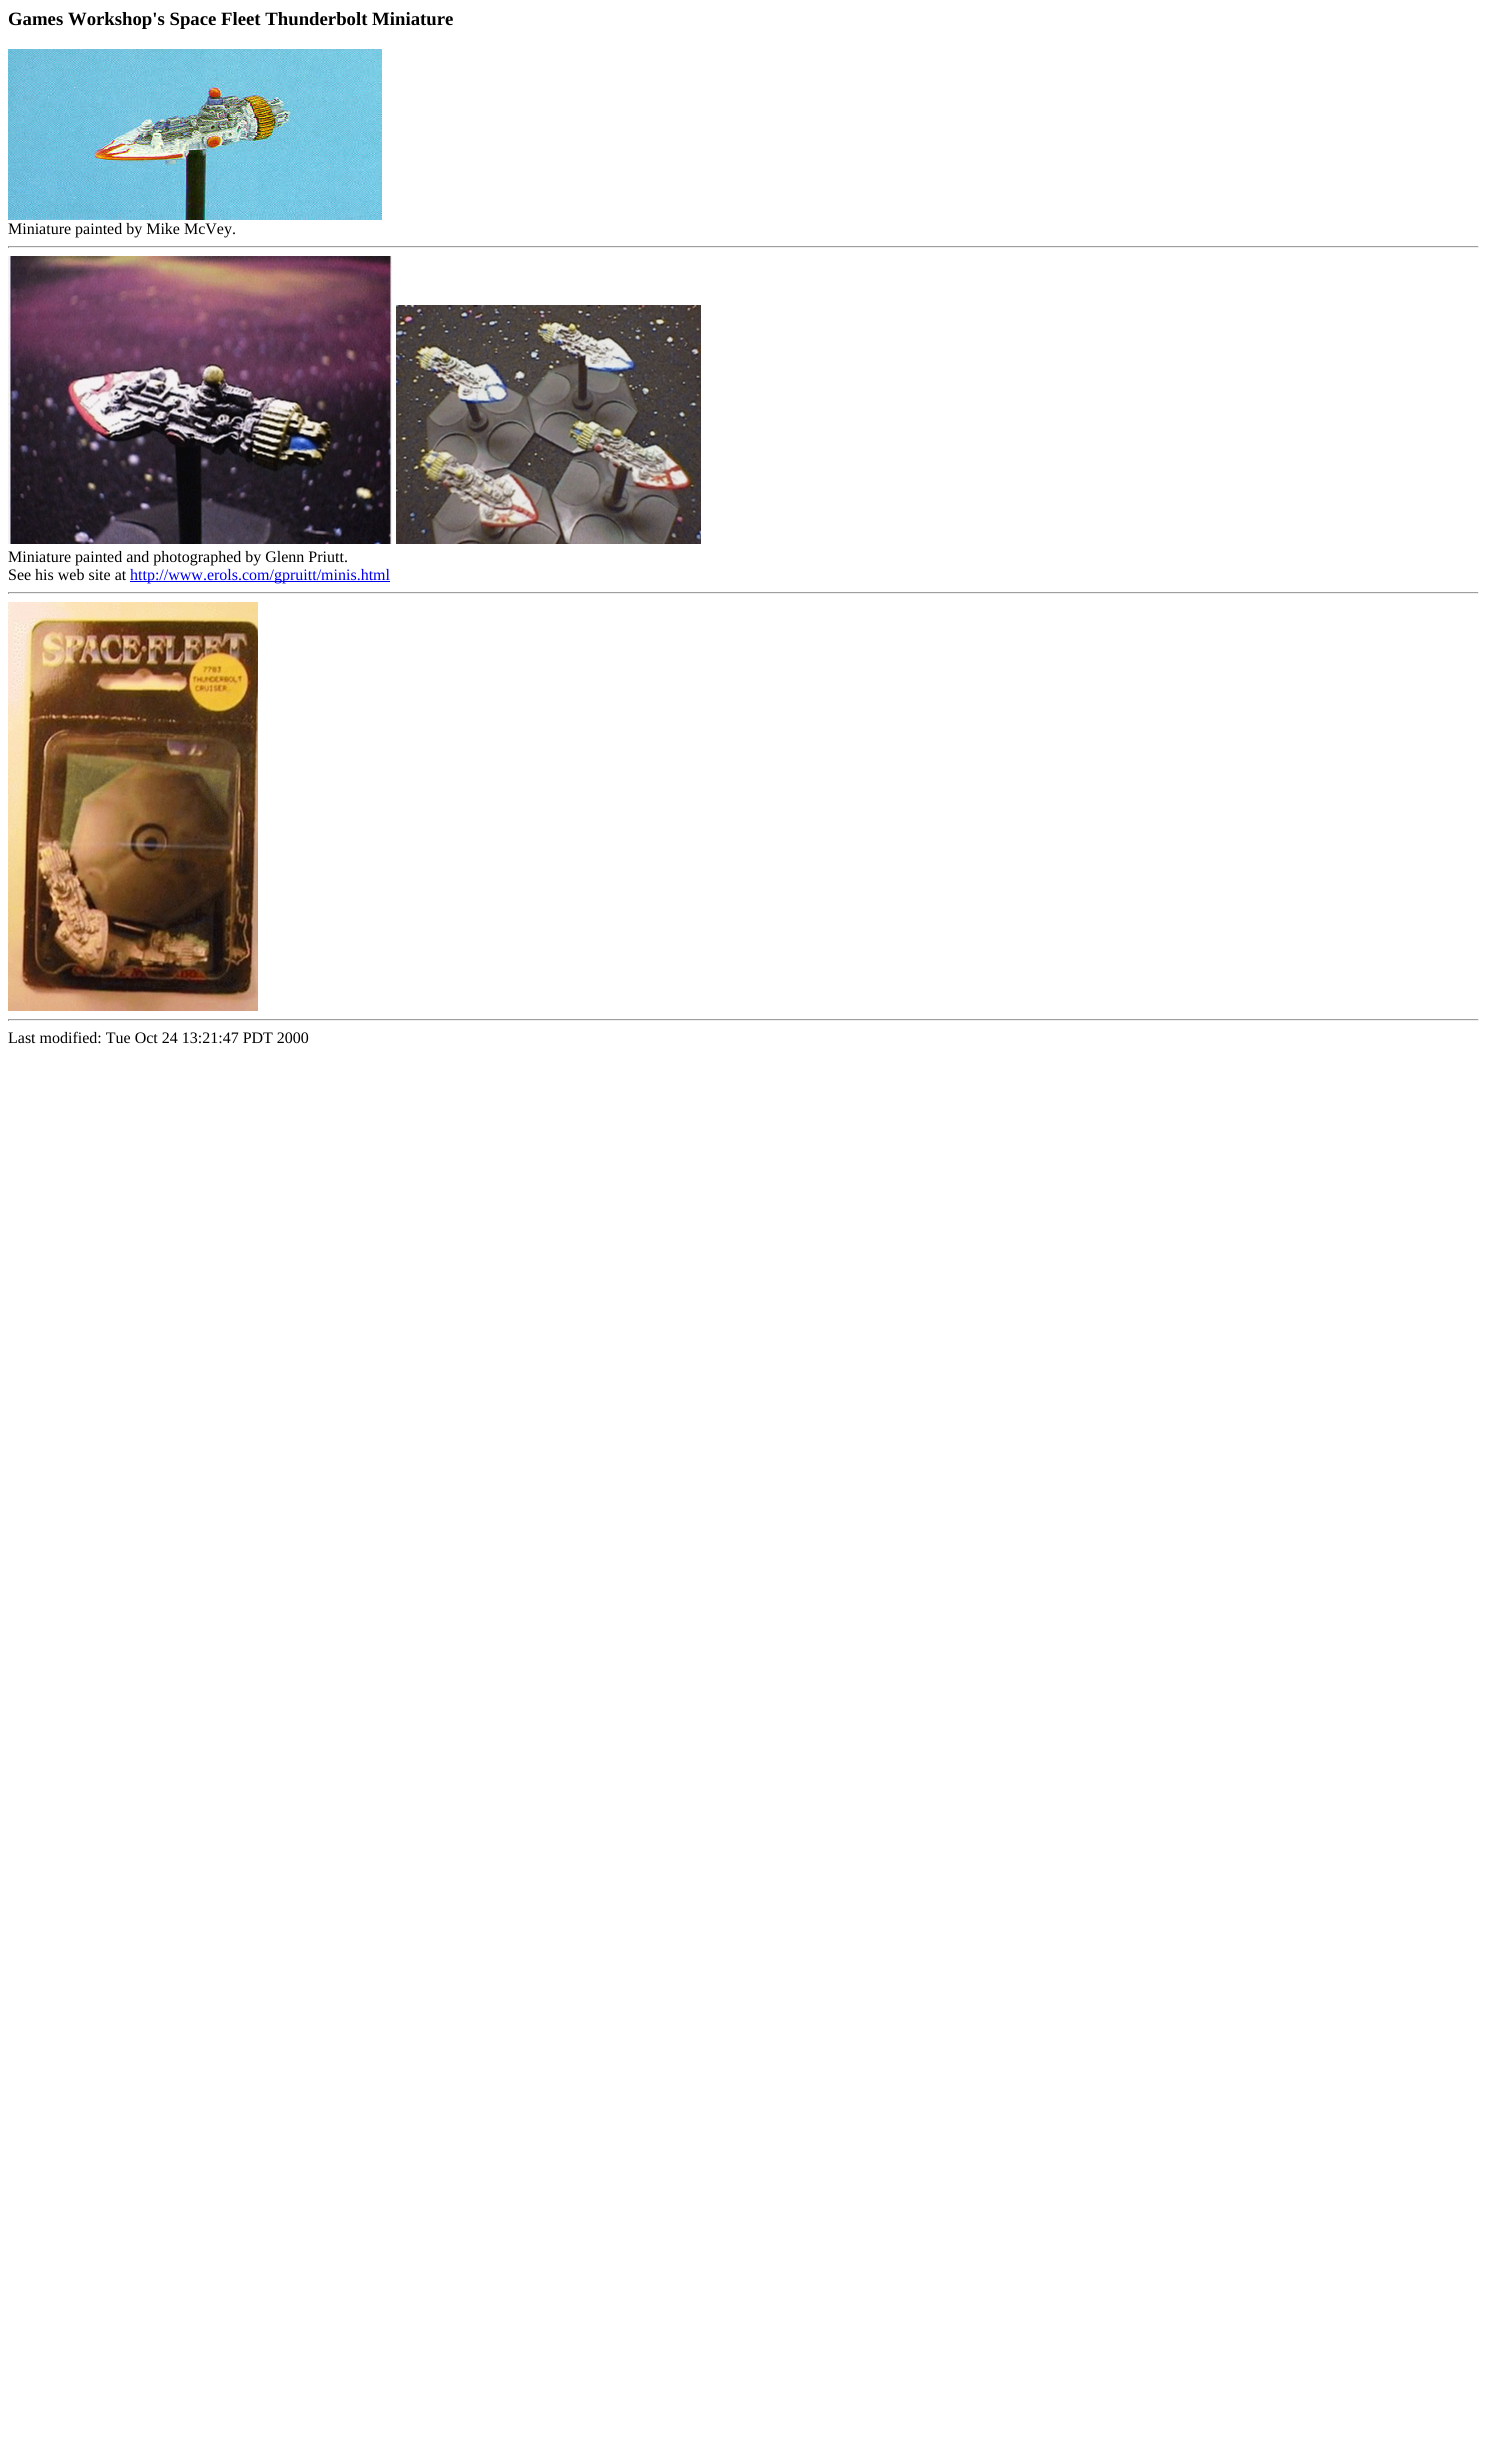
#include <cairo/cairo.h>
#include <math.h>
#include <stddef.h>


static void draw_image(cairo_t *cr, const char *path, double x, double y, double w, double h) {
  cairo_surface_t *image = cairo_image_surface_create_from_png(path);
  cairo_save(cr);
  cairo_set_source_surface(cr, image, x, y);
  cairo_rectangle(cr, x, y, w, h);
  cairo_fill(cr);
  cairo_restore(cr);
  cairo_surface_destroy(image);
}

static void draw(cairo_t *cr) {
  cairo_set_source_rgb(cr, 1, 1, 1);
  cairo_paint(cr);
  draw_image(cr, "images/1.png", 8, 49, 374, 171);
  cairo_set_source_rgb(cr, 159 / 255.0, 159 / 255.0, 159 / 255.0);
  cairo_rectangle(cr, 8, 246, 1471, 1);
  cairo_fill(cr);
  cairo_set_source_rgb(cr, 238 / 255.0, 238 / 255.0, 238 / 255.0);
  cairo_rectangle(cr, 1478, 246, 1, 2);
  cairo_fill(cr);
  cairo_rectangle(cr, 8, 247, 1471, 1);
  cairo_fill(cr);
  cairo_set_source_rgb(cr, 159 / 255.0, 159 / 255.0, 159 / 255.0);
  cairo_rectangle(cr, 8, 246, 1, 2);
  cairo_fill(cr);
  draw_image(cr, "images/2.png", 8, 256, 384, 288);
  draw_image(cr, "images/3.png", 396, 305, 305, 239);
  cairo_set_source_rgb(cr, 0, 0, 238 / 255.0);
  cairo_rectangle(cr, 130, 581, 260, 1);
  cairo_fill(cr);
  cairo_set_source_rgb(cr, 159 / 255.0, 159 / 255.0, 159 / 255.0);
  cairo_rectangle(cr, 8, 592, 1471, 1);
  cairo_fill(cr);
  cairo_set_source_rgb(cr, 238 / 255.0, 238 / 255.0, 238 / 255.0);
  cairo_rectangle(cr, 1478, 592, 1, 2);
  cairo_fill(cr);
  cairo_rectangle(cr, 8, 593, 1471, 1);
  cairo_fill(cr);
  cairo_set_source_rgb(cr, 159 / 255.0, 159 / 255.0, 159 / 255.0);
  cairo_rectangle(cr, 8, 592, 1, 2);
  cairo_fill(cr);
  draw_image(cr, "images/4.png", 8, 602, 250, 409);
  cairo_rectangle(cr, 8, 1019, 1471, 1);
  cairo_fill(cr);
  cairo_set_source_rgb(cr, 238 / 255.0, 238 / 255.0, 238 / 255.0);
  cairo_rectangle(cr, 1478, 1019, 1, 2);
  cairo_fill(cr);
  cairo_rectangle(cr, 8, 1020, 1471, 1);
  cairo_fill(cr);
  cairo_set_source_rgb(cr, 159 / 255.0, 159 / 255.0, 159 / 255.0);
  cairo_rectangle(cr, 8, 1019, 1, 2);
  cairo_fill(cr);
  cairo_select_font_face(cr, "Liberation Serif", CAIRO_FONT_SLANT_NORMAL, CAIRO_FONT_WEIGHT_BOLD);
  cairo_set_font_size(cr, 18.75);
  cairo_set_source_rgb(cr, 0, 0, 0);
  cairo_move_to(cr, 8, 25);
  cairo_show_text(cr, "Games Workshop's Space Fleet Thunderbolt Miniature");
  cairo_select_font_face(cr, "Liberation Serif", CAIRO_FONT_SLANT_NORMAL, CAIRO_FONT_WEIGHT_NORMAL);
  cairo_set_font_size(cr, 16);
  cairo_move_to(cr, 8, 234);
  cairo_show_text(cr, "Miniature painted by Mike McVey.");
  cairo_move_to(cr, 8, 562);
  cairo_show_text(cr, "Miniature painted and photographed by Glenn Priutt.");
  cairo_move_to(cr, 8, 580);
  cairo_show_text(cr, "See his web site at");
  cairo_set_source_rgb(cr, 0, 0, 238 / 255.0);
  cairo_move_to(cr, 130, 580);
  cairo_show_text(cr, "http://www.erols.com/gpruitt/minis.html");
  cairo_set_source_rgb(cr, 0, 0, 0);
  cairo_move_to(cr, 8, 1043);
  cairo_show_text(cr, "Last modified: Tue Oct 24 13:21:47 PDT 2000");
}

int main(void) {
  cairo_surface_t *surface = cairo_image_surface_create(CAIRO_FORMAT_RGB24, 1487, 2451);
  cairo_t *cr = cairo_create(surface);
  cairo_font_options_t *options = cairo_font_options_create();
  cairo_font_options_set_hint_metrics(options, CAIRO_HINT_METRICS_OFF);
  cairo_font_options_set_hint_style(options, CAIRO_HINT_STYLE_NONE);
  cairo_set_font_options(cr, options);
  cairo_set_miter_limit(cr, 4);
  draw(cr);
  cairo_surface_write_to_png(surface, "out.png");
  cairo_font_options_destroy(options);
  cairo_destroy(cr);
  cairo_surface_destroy(surface);
  return 0;
}
